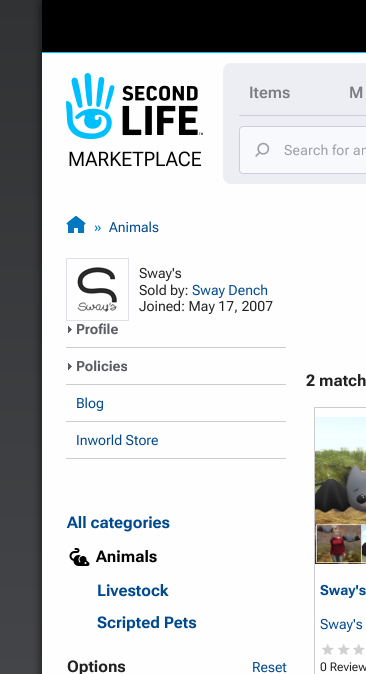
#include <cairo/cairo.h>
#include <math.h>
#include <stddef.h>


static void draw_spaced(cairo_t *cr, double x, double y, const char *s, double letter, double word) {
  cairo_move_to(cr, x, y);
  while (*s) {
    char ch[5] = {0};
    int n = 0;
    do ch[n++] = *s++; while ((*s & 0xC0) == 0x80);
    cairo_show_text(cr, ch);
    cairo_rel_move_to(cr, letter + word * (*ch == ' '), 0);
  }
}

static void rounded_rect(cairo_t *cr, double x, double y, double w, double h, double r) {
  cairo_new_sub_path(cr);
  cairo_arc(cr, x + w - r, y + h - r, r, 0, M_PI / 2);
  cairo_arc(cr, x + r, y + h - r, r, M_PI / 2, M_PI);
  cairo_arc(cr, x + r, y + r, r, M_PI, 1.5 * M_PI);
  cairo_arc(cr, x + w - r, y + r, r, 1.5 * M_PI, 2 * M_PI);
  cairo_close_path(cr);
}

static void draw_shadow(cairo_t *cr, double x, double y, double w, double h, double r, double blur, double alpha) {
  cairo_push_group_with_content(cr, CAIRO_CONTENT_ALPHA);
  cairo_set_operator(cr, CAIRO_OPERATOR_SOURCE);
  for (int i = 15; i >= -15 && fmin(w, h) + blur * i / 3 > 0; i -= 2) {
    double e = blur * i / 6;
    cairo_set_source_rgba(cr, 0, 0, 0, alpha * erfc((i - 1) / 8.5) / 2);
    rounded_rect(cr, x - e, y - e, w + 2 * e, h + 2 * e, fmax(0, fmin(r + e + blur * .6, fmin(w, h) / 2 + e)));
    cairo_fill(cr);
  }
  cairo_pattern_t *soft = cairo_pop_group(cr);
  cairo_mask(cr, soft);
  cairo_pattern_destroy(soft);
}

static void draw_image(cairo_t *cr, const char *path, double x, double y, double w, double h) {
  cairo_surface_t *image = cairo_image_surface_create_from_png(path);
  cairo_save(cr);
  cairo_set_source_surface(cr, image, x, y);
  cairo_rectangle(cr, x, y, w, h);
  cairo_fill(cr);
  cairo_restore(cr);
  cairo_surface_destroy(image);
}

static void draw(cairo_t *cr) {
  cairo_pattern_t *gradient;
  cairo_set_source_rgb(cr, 1, 1, 1);
  cairo_paint(cr);
  gradient = cairo_pattern_create_linear(183, 0, 183, 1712);
  cairo_pattern_add_color_stop_rgba(gradient, 0, 49 / 255.0, 50 / 255.0, 52 / 255.0, 1);
  cairo_pattern_add_color_stop_rgba(gradient, 1, 97 / 255.0, 98 / 255.0, 103 / 255.0, 1);
  cairo_set_source(cr, gradient);
  cairo_pattern_destroy(gradient);
  cairo_rectangle(cr, 0, 0, 42, 674);
  cairo_fill(cr);
  cairo_set_source_rgb(cr, 0, 0, 0);
  draw_shadow(cr, 40, 2, 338, 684, 0, 4, 0.5);
  cairo_set_source_rgb(cr, 254 / 255.0, 254 / 255.0, 254 / 255.0);
  cairo_rectangle(cr, 42, 53, 324, 621);
  cairo_fill(cr);
  cairo_set_source_rgb(cr, 0, 0, 0);
  cairo_rectangle(cr, 42, 0, 324, 52);
  cairo_fill(cr);
  cairo_set_source_rgb(cr, 0, 191 / 255.0, 1);
  cairo_rectangle(cr, 42, 52, 324, 1);
  cairo_fill(cr);
  draw_image(cr, "images/1.png", 66, 73, 137, 94);
  cairo_set_source_rgb(cr, 236 / 255.0, 238 / 255.0, 243 / 255.0);
  rounded_rect(cr, 223, 63, 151, 121, 8);
  cairo_fill(cr);
  cairo_set_source_rgb(cr, 204 / 255.0, 207 / 255.0, 215 / 255.0);
  cairo_rectangle(cr, 239, 115, 127, 1);
  cairo_fill(cr);
  cairo_set_source_rgb(cr, 248 / 255.0, 249 / 255.0, 252 / 255.0);
  rounded_rect(cr, 239.5, 126.5, 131, 47, 3.5);
  cairo_fill_preserve(cr);
  cairo_set_source_rgb(cr, 204 / 255.0, 207 / 255.0, 215 / 255.0);
  cairo_set_line_width(cr, 1);
  cairo_stroke(cr);
  draw_image(cr, "images/2.png", 255, 142, 15, 15);
  draw_image(cr, "images/3.png", 66, 215, 20, 18);
  cairo_rectangle(cr, 66.5, 258.5, 62, 62);
  cairo_set_source_rgb(cr, 222 / 255.0, 224 / 255.0, 232 / 255.0);
  cairo_stroke(cr);
  draw_image(cr, "images/4.png", 77, 267, 40, 45);
  draw_image(cr, "images/5.png", 68, 326, 4, 7);
  cairo_set_source_rgb(cr, 204 / 255.0, 204 / 255.0, 204 / 255.0);
  cairo_rectangle(cr, 66, 347, 220, 1);
  cairo_fill(cr);
  draw_image(cr, "images/5.png", 68, 363, 4, 7);
  cairo_rectangle(cr, 66, 384, 220, 1);
  cairo_fill(cr);
  cairo_rectangle(cr, 66, 421, 220, 1);
  cairo_fill(cr);
  cairo_rectangle(cr, 66, 458, 220, 1);
  cairo_fill(cr);
  draw_image(cr, "images/6.png", 69, 548, 21, 18);
  cairo_rectangle(cr, 314.5, 407.5, 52, 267);
  cairo_stroke(cr);
  draw_image(cr, "images/7.png", 315, 417, 51, 147);
  draw_image(cr, "images/8.png", 322, 644, 12, 11);
  draw_image(cr, "images/8.png", 338, 644, 12, 11);
  draw_image(cr, "images/8.png", 353, 644, 12, 11);
  cairo_select_font_face(cr, "Roboto Flex SemiBold", CAIRO_FONT_SLANT_NORMAL, CAIRO_FONT_WEIGHT_NORMAL);
  cairo_set_font_size(cr, 16);
  cairo_set_source_rgb(cr, 124 / 255.0, 125 / 255.0, 131 / 255.0);
  cairo_move_to(cr, 249, 98);
  cairo_show_text(cr, "Items");
  cairo_move_to(cr, 349, 98);
  cairo_show_text(cr, "M");
  cairo_select_font_face(cr, "Roboto Flex", CAIRO_FONT_SLANT_NORMAL, CAIRO_FONT_WEIGHT_NORMAL);
  cairo_set_font_size(cr, 14);
  cairo_set_source_rgb(cr, 155 / 255.0, 158 / 255.0, 166 / 255.0);
  draw_spaced(cr, 284, 155, "Search for an", 0.2, 0);
  cairo_set_source_rgb(cr, 1 / 255.0, 122 / 255.0, 193 / 255.0);
  cairo_move_to(cr, 94, 232);
  cairo_show_text(cr, "»");
  cairo_set_source_rgb(cr, 1 / 255.0, 74 / 255.0, 142 / 255.0);
  cairo_move_to(cr, 109, 232);
  cairo_show_text(cr, "Animals");
  cairo_set_source_rgb(cr, 34 / 255.0, 34 / 255.0, 34 / 255.0);
  cairo_move_to(cr, 139, 278);
  cairo_show_text(cr, "Sway's");
  cairo_move_to(cr, 139, 295);
  cairo_show_text(cr, "Sold by:");
  cairo_set_source_rgb(cr, 1 / 255.0, 74 / 255.0, 142 / 255.0);
  cairo_move_to(cr, 192, 295);
  cairo_show_text(cr, "Sway Dench");
  cairo_set_source_rgb(cr, 34 / 255.0, 34 / 255.0, 34 / 255.0);
  cairo_move_to(cr, 139, 311);
  cairo_show_text(cr, "Joined: May 17, 2007");
  cairo_select_font_face(cr, "Roboto Flex", CAIRO_FONT_SLANT_NORMAL, CAIRO_FONT_WEIGHT_BOLD);
  cairo_set_source_rgb(cr, 89 / 255.0, 92 / 255.0, 98 / 255.0);
  cairo_move_to(cr, 76, 334);
  cairo_show_text(cr, "Profile");
  cairo_move_to(cr, 76, 371);
  cairo_show_text(cr, "Policies");
  cairo_select_font_face(cr, "Roboto Flex", CAIRO_FONT_SLANT_NORMAL, CAIRO_FONT_WEIGHT_NORMAL);
  cairo_set_source_rgb(cr, 1 / 255.0, 74 / 255.0, 142 / 255.0);
  cairo_move_to(cr, 76, 408);
  cairo_show_text(cr, "Blog");
  cairo_move_to(cr, 76, 445);
  cairo_show_text(cr, "Inworld Store");
  cairo_select_font_face(cr, "Roboto Flex", CAIRO_FONT_SLANT_NORMAL, CAIRO_FONT_WEIGHT_BOLD);
  cairo_set_font_size(cr, 16);
  cairo_move_to(cr, 67, 528);
  cairo_show_text(cr, "All categories");
  cairo_set_source_rgb(cr, 0, 0, 0);
  cairo_move_to(cr, 96, 562);
  cairo_show_text(cr, "Animals");
  cairo_set_source_rgb(cr, 1 / 255.0, 74 / 255.0, 142 / 255.0);
  cairo_move_to(cr, 97, 596);
  cairo_show_text(cr, "Livestock");
  cairo_move_to(cr, 97, 628);
  cairo_show_text(cr, "Scripted Pets");
  cairo_set_source_rgb(cr, 34 / 255.0, 34 / 255.0, 34 / 255.0);
  cairo_move_to(cr, 67, 672);
  cairo_show_text(cr, "Options");
  cairo_select_font_face(cr, "Roboto Flex", CAIRO_FONT_SLANT_NORMAL, CAIRO_FONT_WEIGHT_NORMAL);
  cairo_set_font_size(cr, 14);
  cairo_set_source_rgb(cr, 1 / 255.0, 74 / 255.0, 142 / 255.0);
  cairo_move_to(cr, 252, 672);
  cairo_show_text(cr, "Reset");
  cairo_select_font_face(cr, "Roboto Flex", CAIRO_FONT_SLANT_NORMAL, CAIRO_FONT_WEIGHT_BOLD);
  cairo_set_font_size(cr, 16);
  cairo_set_source_rgb(cr, 34 / 255.0, 34 / 255.0, 34 / 255.0);
  cairo_move_to(cr, 306, 386);
  cairo_show_text(cr, "2 match");
  cairo_set_font_size(cr, 14);
  cairo_set_source_rgb(cr, 1 / 255.0, 74 / 255.0, 142 / 255.0);
  cairo_move_to(cr, 320, 595);
  cairo_show_text(cr, "Sway's");
  cairo_select_font_face(cr, "Roboto Flex", CAIRO_FONT_SLANT_NORMAL, CAIRO_FONT_WEIGHT_NORMAL);
  cairo_move_to(cr, 320, 629);
  cairo_show_text(cr, "Sway's");
  cairo_set_font_size(cr, 12);
  cairo_set_source_rgb(cr, 34 / 255.0, 34 / 255.0, 34 / 255.0);
  cairo_move_to(cr, 320, 671);
  cairo_show_text(cr, "0 Review");
}

int main(void) {
  cairo_surface_t *surface = cairo_image_surface_create(CAIRO_FORMAT_RGB24, 366, 674);
  cairo_t *cr = cairo_create(surface);
  cairo_font_options_t *options = cairo_font_options_create();
  cairo_font_options_set_hint_metrics(options, CAIRO_HINT_METRICS_OFF);
  cairo_font_options_set_hint_style(options, CAIRO_HINT_STYLE_NONE);
  cairo_set_font_options(cr, options);
  cairo_set_miter_limit(cr, 4);
  draw(cr);
  cairo_surface_write_to_png(surface, "out.png");
  cairo_font_options_destroy(options);
  cairo_destroy(cr);
  cairo_surface_destroy(surface);
  return 0;
}
